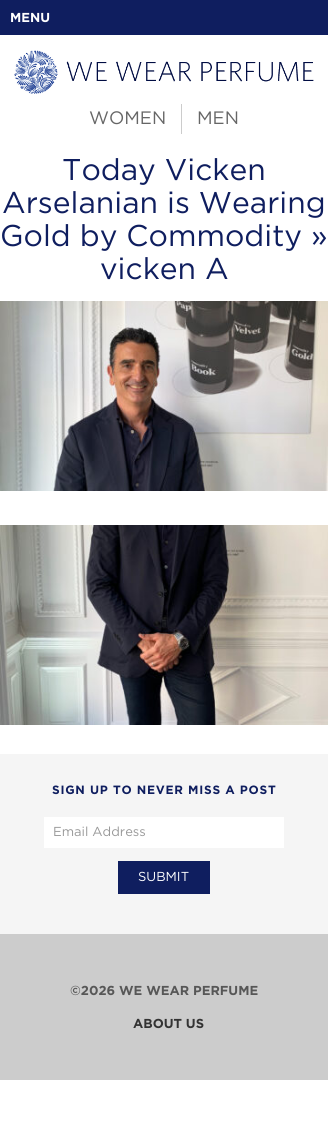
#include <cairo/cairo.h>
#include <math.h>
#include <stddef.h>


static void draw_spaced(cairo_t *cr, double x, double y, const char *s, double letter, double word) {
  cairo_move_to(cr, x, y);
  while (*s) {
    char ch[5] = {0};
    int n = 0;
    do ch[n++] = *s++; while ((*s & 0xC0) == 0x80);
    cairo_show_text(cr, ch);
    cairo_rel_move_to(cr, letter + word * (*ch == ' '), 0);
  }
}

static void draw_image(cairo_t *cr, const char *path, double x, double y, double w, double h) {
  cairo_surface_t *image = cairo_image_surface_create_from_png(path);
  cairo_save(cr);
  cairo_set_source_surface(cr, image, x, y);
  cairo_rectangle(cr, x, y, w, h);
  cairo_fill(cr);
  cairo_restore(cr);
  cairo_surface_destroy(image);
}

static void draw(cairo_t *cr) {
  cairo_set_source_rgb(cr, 1, 1, 1);
  cairo_paint(cr);
  cairo_set_source_rgb(cr, 15 / 255.0, 30 / 255.0, 95 / 255.0);
  cairo_rectangle(cr, 0, 0, 328, 35);
  cairo_fill(cr);
  draw_image(cr, "images/1.png", 14, 50, 300, 44);
  cairo_set_source_rgb(cr, 204 / 255.0, 204 / 255.0, 204 / 255.0);
  cairo_rectangle(cr, 181, 104, 1, 30);
  cairo_fill(cr);
  draw_image(cr, "images/2.png", 0, 301, 328, 190);
  draw_image(cr, "images/3.png", 0, 525, 328, 200);
  cairo_set_source_rgb(cr, 245 / 255.0, 245 / 255.0, 245 / 255.0);
  cairo_rectangle(cr, 0, 754, 328, 180);
  cairo_fill(cr);
  cairo_set_source_rgb(cr, 1, 1, 1);
  cairo_rectangle(cr, 44, 817, 240, 31);
  cairo_fill(cr);
  cairo_set_source_rgb(cr, 15 / 255.0, 30 / 255.0, 95 / 255.0);
  cairo_rectangle(cr, 118, 861, 92, 33);
  cairo_fill(cr);
  cairo_set_source_rgb(cr, 204 / 255.0, 204 / 255.0, 204 / 255.0);
  cairo_rectangle(cr, 0, 934, 328, 146);
  cairo_fill(cr);
  cairo_select_font_face(cr, "Gotham", CAIRO_FONT_SLANT_NORMAL, CAIRO_FONT_WEIGHT_BOLD);
  cairo_set_font_size(cr, 13);
  cairo_set_source_rgb(cr, 1, 1, 1);
  cairo_move_to(cr, 10, 22);
  cairo_show_text(cr, "MENU");
  cairo_select_font_face(cr, "Gotham", CAIRO_FONT_SLANT_NORMAL, CAIRO_FONT_WEIGHT_NORMAL);
  cairo_set_font_size(cr, 18);
  cairo_set_source_rgb(cr, 102 / 255.0, 102 / 255.0, 102 / 255.0);
  cairo_move_to(cr, 89, 124);
  cairo_show_text(cr, "WOMEN");
  cairo_move_to(cr, 197, 124);
  cairo_show_text(cr, "MEN");
  cairo_set_font_size(cr, 30);
  cairo_set_source_rgb(cr, 15 / 255.0, 30 / 255.0, 95 / 255.0);
  cairo_move_to(cr, 62, 180);
  cairo_show_text(cr, "Today Vicken");
  cairo_move_to(cr, 2, 213);
  cairo_show_text(cr, "Arselanian is Wearing");
  cairo_move_to(cr, 0, 246);
  cairo_show_text(cr, "Gold by Commodity »");
  cairo_move_to(cr, 100, 279);
  cairo_show_text(cr, "vicken A");
  cairo_select_font_face(cr, "Gotham", CAIRO_FONT_SLANT_NORMAL, CAIRO_FONT_WEIGHT_BOLD);
  cairo_set_font_size(cr, 12);
  draw_spaced(cr, 52, 794, "SIGN UP TO NEVER MISS A POST", 0.75, 0);
  cairo_select_font_face(cr, "Gotham", CAIRO_FONT_SLANT_NORMAL, CAIRO_FONT_WEIGHT_NORMAL);
  cairo_set_font_size(cr, 13);
  cairo_set_source_rgb(cr, 153 / 255.0, 153 / 255.0, 153 / 255.0);
  cairo_move_to(cr, 53, 836);
  cairo_show_text(cr, "Email Address");
  cairo_set_source_rgb(cr, 1, 1, 1);
  cairo_move_to(cr, 138, 881);
  cairo_show_text(cr, "SUBMIT");
  cairo_select_font_face(cr, "Gotham", CAIRO_FONT_SLANT_NORMAL, CAIRO_FONT_WEIGHT_BOLD);
  cairo_set_source_rgb(cr, 87 / 255.0, 87 / 255.0, 87 / 255.0);
  cairo_move_to(cr, 70, 995);
  cairo_show_text(cr, "©2026 WE WEAR PERFUME");
  cairo_set_source_rgb(cr, 51 / 255.0, 51 / 255.0, 51 / 255.0);
  cairo_move_to(cr, 133, 1028);
  cairo_show_text(cr, "ABOUT US");
}

int main(void) {
  cairo_surface_t *surface = cairo_image_surface_create(CAIRO_FORMAT_RGB24, 328, 1124);
  cairo_t *cr = cairo_create(surface);
  cairo_font_options_t *options = cairo_font_options_create();
  cairo_font_options_set_hint_metrics(options, CAIRO_HINT_METRICS_OFF);
  cairo_font_options_set_hint_style(options, CAIRO_HINT_STYLE_NONE);
  cairo_set_font_options(cr, options);
  cairo_set_miter_limit(cr, 4);
  draw(cr);
  cairo_surface_write_to_png(surface, "out.png");
  cairo_font_options_destroy(options);
  cairo_destroy(cr);
  cairo_surface_destroy(surface);
  return 0;
}
